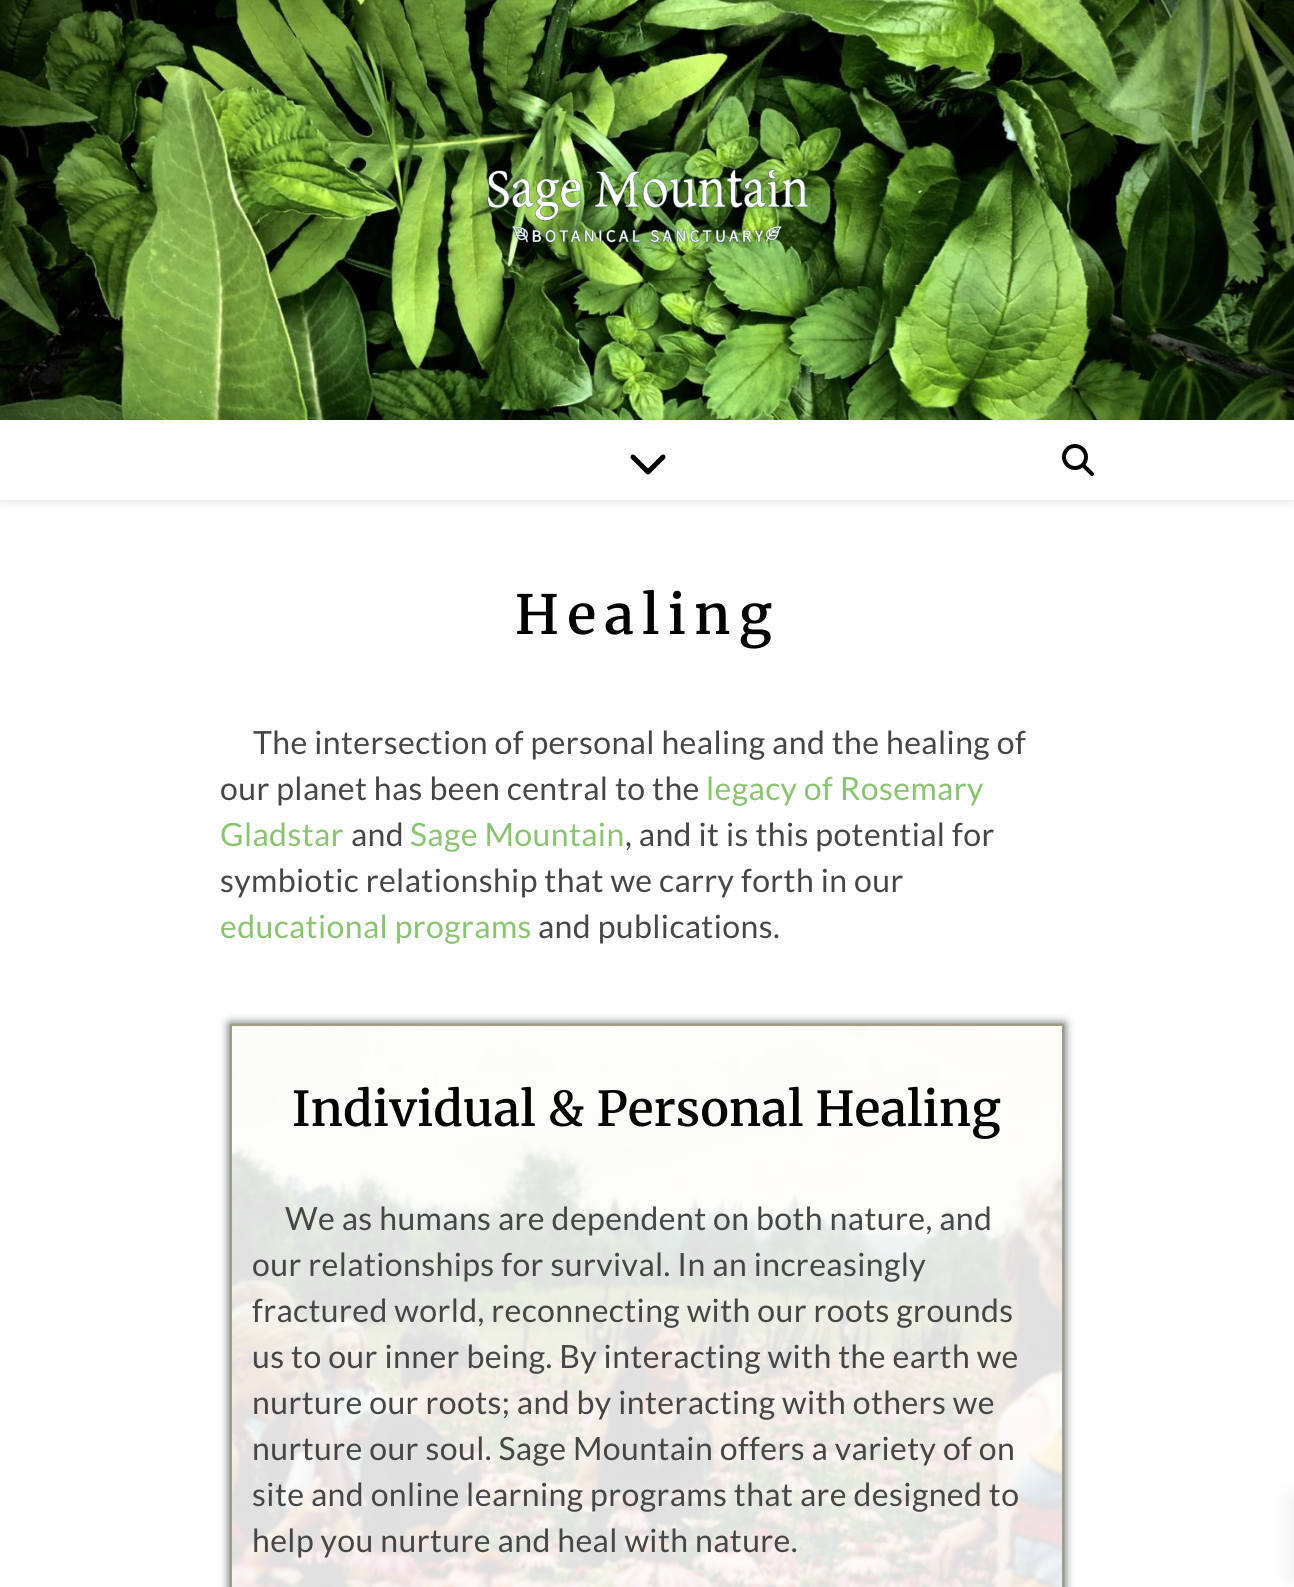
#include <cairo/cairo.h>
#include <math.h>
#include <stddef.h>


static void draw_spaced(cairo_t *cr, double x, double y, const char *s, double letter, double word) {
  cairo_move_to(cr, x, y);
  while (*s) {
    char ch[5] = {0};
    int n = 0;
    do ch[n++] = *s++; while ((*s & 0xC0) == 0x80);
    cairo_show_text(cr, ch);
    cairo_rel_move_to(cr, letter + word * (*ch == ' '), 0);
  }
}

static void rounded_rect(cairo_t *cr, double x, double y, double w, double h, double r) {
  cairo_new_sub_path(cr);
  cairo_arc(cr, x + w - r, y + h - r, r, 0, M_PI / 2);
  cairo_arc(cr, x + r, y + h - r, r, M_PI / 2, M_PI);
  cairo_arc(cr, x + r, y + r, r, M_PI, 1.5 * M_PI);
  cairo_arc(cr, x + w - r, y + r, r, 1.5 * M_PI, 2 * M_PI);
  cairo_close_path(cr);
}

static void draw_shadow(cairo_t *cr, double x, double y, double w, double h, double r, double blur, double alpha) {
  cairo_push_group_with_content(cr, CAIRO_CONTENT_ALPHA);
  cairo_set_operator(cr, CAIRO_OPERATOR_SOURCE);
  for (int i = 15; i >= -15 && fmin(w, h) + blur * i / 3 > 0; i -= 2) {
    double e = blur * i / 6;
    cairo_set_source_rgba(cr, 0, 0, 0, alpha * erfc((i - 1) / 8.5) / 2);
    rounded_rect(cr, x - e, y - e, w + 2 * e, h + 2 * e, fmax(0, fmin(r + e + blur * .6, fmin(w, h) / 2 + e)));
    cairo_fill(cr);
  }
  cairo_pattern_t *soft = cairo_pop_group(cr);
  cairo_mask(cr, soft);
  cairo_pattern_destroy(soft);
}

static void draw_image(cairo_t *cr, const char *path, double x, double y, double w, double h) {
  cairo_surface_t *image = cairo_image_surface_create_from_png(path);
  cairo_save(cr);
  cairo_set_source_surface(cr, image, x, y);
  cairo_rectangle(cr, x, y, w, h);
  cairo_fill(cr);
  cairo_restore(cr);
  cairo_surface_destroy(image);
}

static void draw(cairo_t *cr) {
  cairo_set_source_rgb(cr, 1, 1, 1);
  cairo_paint(cr);
  draw_image(cr, "images/1.png", 0, 0, 1294, 420);
  draw_image(cr, "images/2.png", 487, 169, 322, 74);
  cairo_save(cr);
  cairo_set_fill_rule(cr, CAIRO_FILL_RULE_EVEN_ODD);
  cairo_new_path(cr);
  cairo_move_to(cr, 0, 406);
  cairo_line_to(cr, 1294, 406);
  cairo_line_to(cr, 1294, 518);
  cairo_line_to(cr, 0, 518);
  cairo_close_path(cr);
  cairo_move_to(cr, 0, 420);
  cairo_line_to(cr, 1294, 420);
  cairo_line_to(cr, 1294, 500);
  cairo_line_to(cr, 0, 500);
  cairo_close_path(cr);
  cairo_clip(cr);
  cairo_set_source_rgb(cr, 0, 0, 0);
  draw_shadow(cr, 0, 422, 1294, 80, 0, 5, 0.1);
  cairo_restore(cr);
  draw_image(cr, "images/3.png", 630, 454, 36, 21);
  draw_image(cr, "images/4.png", 1062, 444, 32, 32);
  cairo_set_source_rgb(cr, 65 / 255.0, 75 / 255.0, 71 / 255.0);
  draw_shadow(cr, 230, 1024, 834, 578, 0, 5, 1);
  draw_image(cr, "images/5.png", 232, 1026, 830, 561);
  cairo_rectangle(cr, 231, 1025, 832, 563);
  cairo_set_source_rgb(cr, 161 / 255.0, 157 / 255.0, 131 / 255.0);
  cairo_stroke(cr);
  cairo_set_source_rgb(cr, 0, 0, 0);
  draw_shadow(cr, 1294, 1496, 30, 82, 0, 10, 0.1);
  cairo_select_font_face(cr, "Merriweather SemiBold", CAIRO_FONT_SLANT_NORMAL, CAIRO_FONT_WEIGHT_NORMAL);
  cairo_set_font_size(cr, 54);
  cairo_set_source_rgb(cr, 3 / 255.0, 3 / 255.0, 3 / 255.0);
  draw_spaced(cr, 515, 634, "Healing", 8.5, 0);
  cairo_select_font_face(cr, "Lato", CAIRO_FONT_SLANT_NORMAL, CAIRO_FONT_WEIGHT_NORMAL);
  cairo_set_font_size(cr, 32);
  cairo_set_source_rgb(cr, 70 / 255.0, 70 / 255.0, 70 / 255.0);
  draw_spaced(cr, 253, 754, "The intersection of personal healing and the healing of", 0.4, 0);
  draw_spaced(cr, 220, 800, "our planet has been central to the", 0.4, 0);
  cairo_set_source_rgb(cr, 138 / 255.0, 196 / 255.0, 113 / 255.0);
  draw_spaced(cr, 706, 800, "legacy of Rosemary", 0.4, 0);
  draw_spaced(cr, 220, 846, "Gladstar", 0.4, 0);
  cairo_set_source_rgb(cr, 70 / 255.0, 70 / 255.0, 70 / 255.0);
  draw_spaced(cr, 351, 846, "and", 0.4, 0);
  cairo_set_source_rgb(cr, 138 / 255.0, 196 / 255.0, 113 / 255.0);
  draw_spaced(cr, 410, 846, "Sage Mountain", 0.4, 0);
  cairo_set_source_rgb(cr, 70 / 255.0, 70 / 255.0, 70 / 255.0);
  draw_spaced(cr, 625, 846, ", and it is this potential for", 0.4, 0);
  draw_spaced(cr, 220, 892, "symbiotic relationship that we carry forth in our", 0.4, 0);
  cairo_set_source_rgb(cr, 138 / 255.0, 196 / 255.0, 113 / 255.0);
  draw_spaced(cr, 220, 938, "educational programs", 0.4, 0);
  cairo_set_source_rgb(cr, 70 / 255.0, 70 / 255.0, 70 / 255.0);
  draw_spaced(cr, 538, 938, "and publications.", 0.4, 0);
  cairo_select_font_face(cr, "Merriweather SemiBold", CAIRO_FONT_SLANT_NORMAL, CAIRO_FONT_WEIGHT_NORMAL);
  cairo_set_font_size(cr, 48);
  cairo_set_source_rgb(cr, 3 / 255.0, 3 / 255.0, 3 / 255.0);
  draw_spaced(cr, 292, 1126, "Individual & Personal Healing", 0.4, 0);
  cairo_select_font_face(cr, "Lato", CAIRO_FONT_SLANT_NORMAL, CAIRO_FONT_WEIGHT_NORMAL);
  cairo_set_font_size(cr, 32);
  cairo_set_source_rgb(cr, 70 / 255.0, 70 / 255.0, 70 / 255.0);
  draw_spaced(cr, 285, 1230, "We as humans are dependent on both nature, and", 0.4, 0);
  draw_spaced(cr, 252, 1276, "our relationships for survival. In an increasingly", 0.4, 0);
  draw_spaced(cr, 252, 1322, "fractured world, reconnecting with our roots grounds", 0.4, 0);
  draw_spaced(cr, 252, 1368, "us to our inner being. By interacting with the earth we", 0.4, 0);
  draw_spaced(cr, 252, 1414, "nurture our roots; and by interacting with others we", 0.4, 0);
  draw_spaced(cr, 252, 1460, "nurture our soul. Sage Mountain offers a variety of on", 0.4, 0);
  draw_spaced(cr, 252, 1506, "site and online learning programs that are designed to", 0.4, 0);
  draw_spaced(cr, 252, 1552, "help you nurture and heal with nature.", 0.4, 0);
}

int main(void) {
  cairo_surface_t *surface = cairo_image_surface_create(CAIRO_FORMAT_RGB24, 1294, 1587);
  cairo_t *cr = cairo_create(surface);
  cairo_font_options_t *options = cairo_font_options_create();
  cairo_font_options_set_hint_metrics(options, CAIRO_HINT_METRICS_OFF);
  cairo_font_options_set_hint_style(options, CAIRO_HINT_STYLE_NONE);
  cairo_set_font_options(cr, options);
  cairo_set_miter_limit(cr, 4);
  draw(cr);
  cairo_surface_write_to_png(surface, "out.png");
  cairo_font_options_destroy(options);
  cairo_destroy(cr);
  cairo_surface_destroy(surface);
  return 0;
}
